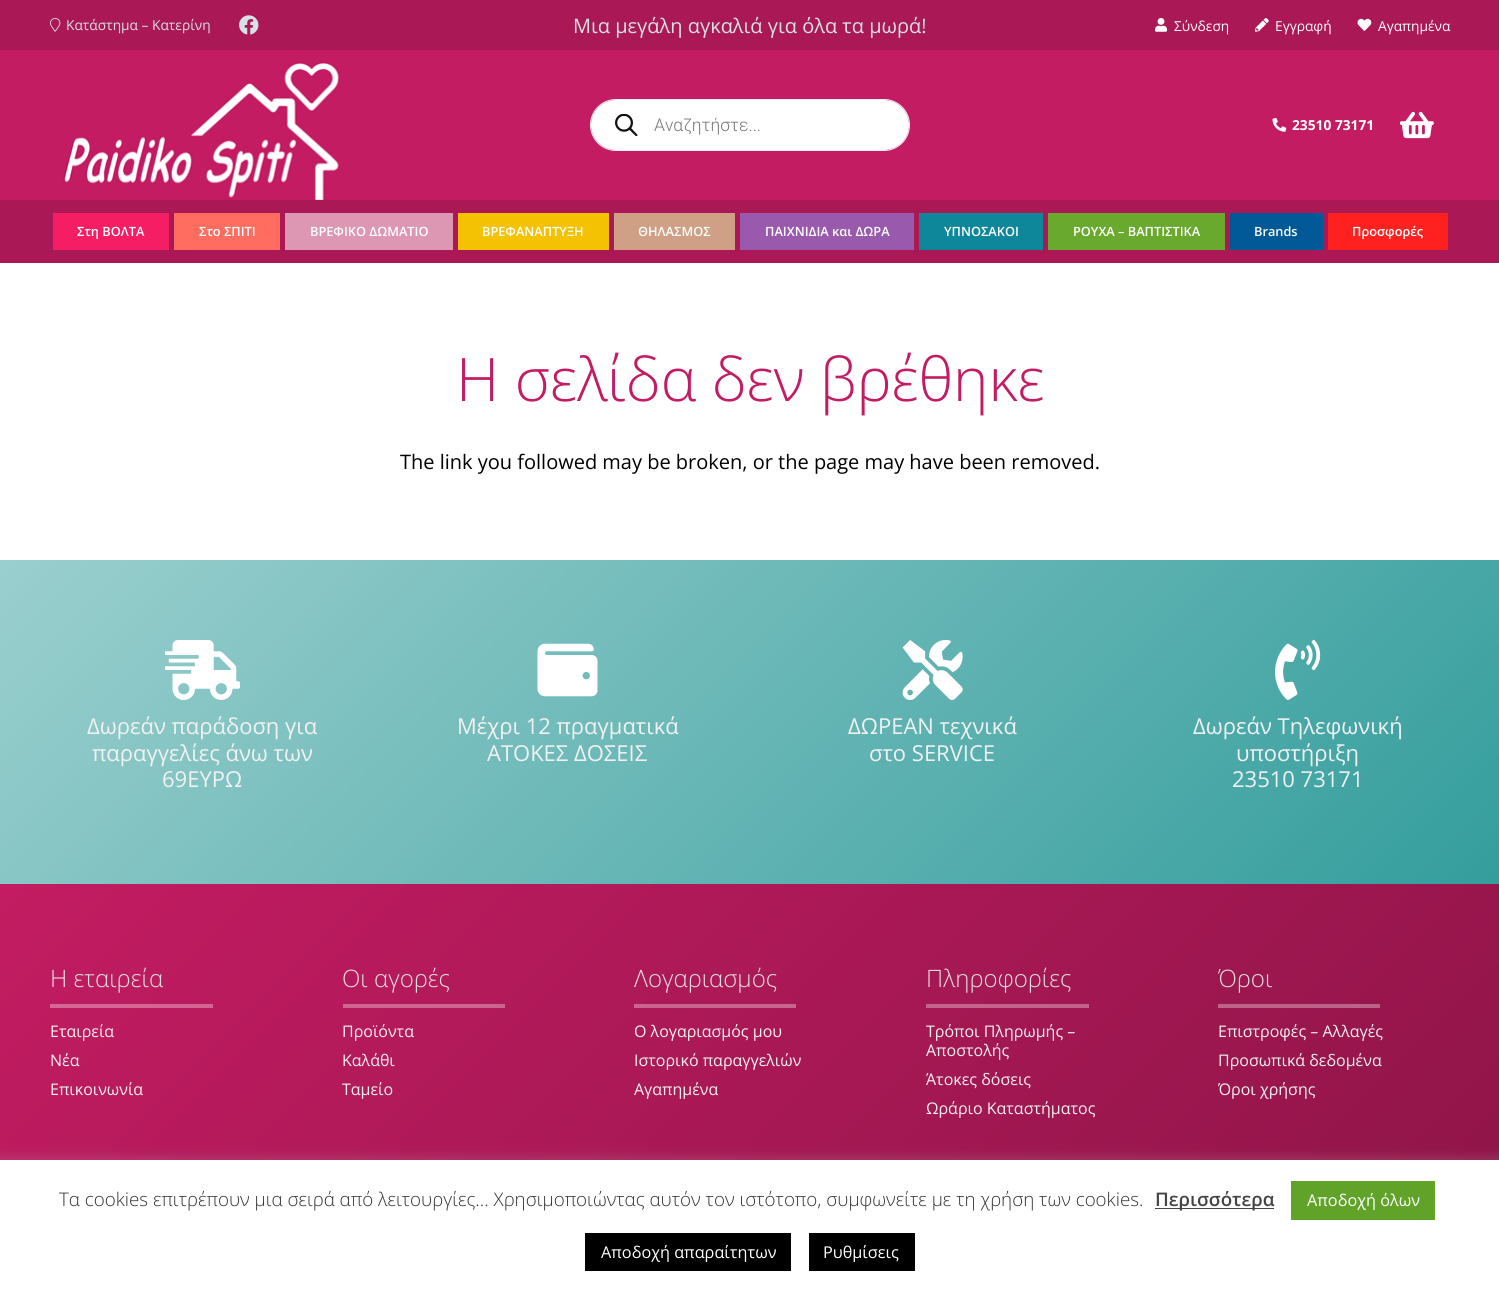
#include <cairo/cairo.h>
#include <math.h>
#include <stddef.h>


static void rounded_rect(cairo_t *cr, double x, double y, double w, double h, double r) {
  cairo_new_sub_path(cr);
  cairo_arc(cr, x + w - r, y + h - r, r, 0, M_PI / 2);
  cairo_arc(cr, x + r, y + h - r, r, M_PI / 2, M_PI);
  cairo_arc(cr, x + r, y + r, r, M_PI, 1.5 * M_PI);
  cairo_arc(cr, x + w - r, y + r, r, 1.5 * M_PI, 2 * M_PI);
  cairo_close_path(cr);
}

static void draw_shadow(cairo_t *cr, double x, double y, double w, double h, double r, double blur, double alpha) {
  cairo_push_group_with_content(cr, CAIRO_CONTENT_ALPHA);
  cairo_set_operator(cr, CAIRO_OPERATOR_SOURCE);
  for (int i = 15; i >= -15 && fmin(w, h) + blur * i / 3 > 0; i -= 2) {
    double e = blur * i / 6;
    cairo_set_source_rgba(cr, 0, 0, 0, alpha * erfc((i - 1) / 8.5) / 2);
    rounded_rect(cr, x - e, y - e, w + 2 * e, h + 2 * e, fmax(0, fmin(r + e + blur * .6, fmin(w, h) / 2 + e)));
    cairo_fill(cr);
  }
  cairo_pattern_t *soft = cairo_pop_group(cr);
  cairo_mask(cr, soft);
  cairo_pattern_destroy(soft);
}

static void draw_image(cairo_t *cr, const char *path, double x, double y, double w, double h) {
  cairo_surface_t *image = cairo_image_surface_create_from_png(path);
  cairo_save(cr);
  cairo_set_source_surface(cr, image, x, y);
  cairo_rectangle(cr, x, y, w, h);
  cairo_fill(cr);
  cairo_restore(cr);
  cairo_surface_destroy(image);
}

static void draw(cairo_t *cr) {
  cairo_pattern_t *gradient;
  cairo_set_source_rgb(cr, 1, 1, 1);
  cairo_paint(cr);
  cairo_set_source_rgb(cr, 195 / 255.0, 28 / 255.0, 98 / 255.0);
  cairo_rectangle(cr, 0, 50, 1499, 150);
  cairo_fill(cr);
  cairo_set_source_rgb(cr, 170 / 255.0, 24 / 255.0, 85 / 255.0);
  cairo_rectangle(cr, 0, 0, 1499, 50);
  cairo_fill(cr);
  draw_image(cr, "images/1.png", 50, 18, 11, 14);
  draw_image(cr, "images/2.png", 239, 15, 20, 20);
  draw_image(cr, "images/3.png", 1155, 18, 13, 14);
  draw_image(cr, "images/4.png", 1255, 18, 14, 14);
  draw_image(cr, "images/5.png", 1357, 18, 15, 13);
  draw_image(cr, "images/6.png", 63, 62, 277, 138);
  rounded_rect(cr, 590.5, 99.5, 319, 51, 25.5);
  cairo_set_source_rgb(cr, 238 / 255.0, 238 / 255.0, 238 / 255.0);
  cairo_set_line_width(cr, 1);
  cairo_stroke(cr);
  cairo_set_source_rgb(cr, 1, 1, 1);
  rounded_rect(cr, 591, 100, 318, 50, 25);
  cairo_fill(cr);
  draw_image(cr, "images/7.png", 615, 114, 23, 22);
  draw_image(cr, "images/8.png", 1272, 118, 15, 14);
  draw_image(cr, "images/9.png", 1400, 111, 34, 28);
  cairo_set_source_rgb(cr, 170 / 255.0, 24 / 255.0, 85 / 255.0);
  cairo_rectangle(cr, 0, 200, 1499, 63);
  cairo_fill(cr);
  cairo_set_source_rgb(cr, 245 / 255.0, 29 / 255.0, 100 / 255.0);
  cairo_rectangle(cr, 53, 213, 116, 37);
  cairo_fill(cr);
  cairo_set_source_rgb(cr, 254 / 255.0, 109 / 255.0, 96 / 255.0);
  cairo_rectangle(cr, 174, 213, 106, 37);
  cairo_fill(cr);
  cairo_set_source_rgb(cr, 221 / 255.0, 151 / 255.0, 179 / 255.0);
  cairo_rectangle(cr, 285, 213, 168, 37);
  cairo_fill(cr);
  cairo_set_source_rgb(cr, 244 / 255.0, 194 / 255.0, 3 / 255.0);
  cairo_rectangle(cr, 458, 213, 151, 37);
  cairo_fill(cr);
  cairo_set_source_rgb(cr, 207 / 255.0, 160 / 255.0, 133 / 255.0);
  cairo_rectangle(cr, 614, 213, 121, 37);
  cairo_fill(cr);
  cairo_set_source_rgb(cr, 153 / 255.0, 90 / 255.0, 173 / 255.0);
  cairo_rectangle(cr, 740, 213, 174, 37);
  cairo_fill(cr);
  cairo_set_source_rgb(cr, 14 / 255.0, 135 / 255.0, 155 / 255.0);
  cairo_rectangle(cr, 919, 213, 124, 37);
  cairo_fill(cr);
  cairo_set_source_rgb(cr, 105 / 255.0, 169 / 255.0, 45 / 255.0);
  cairo_rectangle(cr, 1048, 213, 177, 37);
  cairo_fill(cr);
  cairo_set_source_rgb(cr, 1 / 255.0, 89 / 255.0, 152 / 255.0);
  cairo_rectangle(cr, 1230, 213, 93, 37);
  cairo_fill(cr);
  cairo_set_source_rgb(cr, 1, 32 / 255.0, 32 / 255.0);
  cairo_rectangle(cr, 1328, 213, 120, 37);
  cairo_fill(cr);
  gradient = cairo_pattern_create_linear(294, 266, 1206, 1178);
  cairo_pattern_add_color_stop_rgba(gradient, 0, 154 / 255.0, 207 / 255.0, 206 / 255.0, 1);
  cairo_pattern_add_color_stop_rgba(gradient, 1, 52 / 255.0, 158 / 255.0, 157 / 255.0, 1);
  cairo_set_source(cr, gradient);
  cairo_pattern_destroy(gradient);
  cairo_rectangle(cr, 0, 560, 1499, 324);
  cairo_fill(cr);
  draw_image(cr, "images/10.png", 165, 640, 75, 60);
  draw_image(cr, "images/11.png", 537, 643, 61, 54);
  draw_image(cr, "images/12.png", 902, 640, 61, 60);
  draw_image(cr, "images/13.png", 1275, 639, 46, 61);
  gradient = cairo_pattern_create_linear(1264, 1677, 236, 648);
  cairo_pattern_add_color_stop_rgba(gradient, 0, 137 / 255.0, 20 / 255.0, 69 / 255.0, 1);
  cairo_pattern_add_color_stop_rgba(gradient, 1, 195 / 255.0, 28 / 255.0, 98 / 255.0, 1);
  cairo_set_source(cr, gradient);
  cairo_pattern_destroy(gradient);
  cairo_rectangle(cr, 0, 884, 1499, 276);
  cairo_fill(cr);
  gradient = cairo_pattern_create_linear(1264, 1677, 236, 648);
  cairo_pattern_add_color_stop_rgba(gradient, 0, 176 / 255.0, 98 / 255.0, 130 / 255.0, 1);
  cairo_pattern_add_color_stop_rgba(gradient, 1, 215 / 255.0, 103 / 255.0, 150 / 255.0, 1);
  cairo_set_source(cr, gradient);
  cairo_pattern_destroy(gradient);
  cairo_rectangle(cr, 1218, 1004, 162, 4);
  cairo_fill(cr);
  cairo_rectangle(cr, 926, 1004, 163, 4);
  cairo_fill(cr);
  cairo_rectangle(cr, 634, 1004, 162, 4);
  cairo_fill(cr);
  cairo_rectangle(cr, 343, 1004, 162, 4);
  cairo_fill(cr);
  cairo_rectangle(cr, 50, 1004, 163, 4);
  cairo_fill(cr);
  cairo_set_source_rgb(cr, 172 / 255.0, 171 / 255.0, 171 / 255.0);
  draw_shadow(cr, 0, 1159, 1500, 132, 0, 6, 0.3);
  cairo_set_source_rgb(cr, 1, 1, 1);
  cairo_rectangle(cr, 0, 1160, 1499, 132);
  cairo_fill(cr);
  cairo_set_source_rgb(cr, 68 / 255.0, 68 / 255.0, 68 / 255.0);
  cairo_rectangle(cr, 1155, 1208, 119, 1);
  cairo_fill(cr);
  cairo_set_source_rgb(cr, 97 / 255.0, 162 / 255.0, 41 / 255.0);
  cairo_rectangle(cr, 1291, 1181, 144, 39);
  cairo_fill(cr);
  cairo_set_source_rgb(cr, 0, 0, 0);
  cairo_rectangle(cr, 585, 1233, 206, 38);
  cairo_fill(cr);
  cairo_rectangle(cr, 809, 1233, 106, 38);
  cairo_fill(cr);
  cairo_select_font_face(cr, "Open Sans", CAIRO_FONT_SLANT_NORMAL, CAIRO_FONT_WEIGHT_NORMAL);
  cairo_set_font_size(cr, 13.75);
  cairo_set_source_rgb(cr, 215 / 255.0, 226 / 255.0, 230 / 255.0);
  cairo_move_to(cr, 66, 30);
  cairo_show_text(cr, "Κατάστημα – Κατερίνη");
  cairo_set_font_size(cr, 20);
  cairo_move_to(cr, 573, 33);
  cairo_show_text(cr, "Μια μεγάλη αγκαλιά για όλα τα μωρά!");
  cairo_set_font_size(cr, 13.75);
  cairo_set_source_rgb(cr, 1, 1, 1);
  cairo_move_to(cr, 1174, 31);
  cairo_show_text(cr, "Σύνδεση");
  cairo_move_to(cr, 1275, 31);
  cairo_show_text(cr, "Εγγραφή");
  cairo_move_to(cr, 1378, 31);
  cairo_show_text(cr, "Αγαπημένα");
  cairo_select_font_face(cr, "Roboto Light", CAIRO_FONT_SLANT_NORMAL, CAIRO_FONT_WEIGHT_NORMAL);
  cairo_set_font_size(cr, 17.5);
  cairo_set_source_rgb(cr, 119 / 255.0, 119 / 255.0, 119 / 255.0);
  cairo_move_to(cr, 654, 131);
  cairo_show_text(cr, "Αναζητήστε...");
  cairo_select_font_face(cr, "Open Sans", CAIRO_FONT_SLANT_NORMAL, CAIRO_FONT_WEIGHT_BOLD);
  cairo_set_font_size(cr, 13.75);
  cairo_set_source_rgb(cr, 1, 1, 1);
  cairo_move_to(cr, 1292, 130);
  cairo_show_text(cr, "23510 73171");
  cairo_select_font_face(cr, "Open Sans SemiBold", CAIRO_FONT_SLANT_NORMAL, CAIRO_FONT_WEIGHT_NORMAL);
  cairo_set_font_size(cr, 12.75);
  cairo_move_to(cr, 77, 236);
  cairo_show_text(cr, "Στη ΒΟΛΤΑ");
  cairo_move_to(cr, 199, 236);
  cairo_show_text(cr, "Στο ΣΠΙΤΙ");
  cairo_move_to(cr, 310, 236);
  cairo_show_text(cr, "ΒΡΕΦΙΚΟ ΔΩΜΑΤΙΟ");
  cairo_move_to(cr, 482, 236);
  cairo_show_text(cr, "ΒΡΕΦΑΝΑΠΤΥΞΗ");
  cairo_move_to(cr, 638, 236);
  cairo_show_text(cr, "ΘΗΛΑΣΜΟΣ");
  cairo_move_to(cr, 765, 236);
  cairo_show_text(cr, "ΠΑΙΧΝΙΔΙΑ και ΔΩΡΑ");
  cairo_move_to(cr, 944, 236);
  cairo_show_text(cr, "ΥΠΝΟΣΑΚΟΙ");
  cairo_move_to(cr, 1073, 236);
  cairo_show_text(cr, "ΡΟΥΧΑ – ΒΑΠΤΙΣΤΙΚΑ");
  cairo_move_to(cr, 1254, 236);
  cairo_show_text(cr, "Brands");
  cairo_move_to(cr, 1352, 236);
  cairo_show_text(cr, "Προσφορές");
  cairo_select_font_face(cr, "Open Sans Light", CAIRO_FONT_SLANT_NORMAL, CAIRO_FONT_WEIGHT_NORMAL);
  cairo_set_font_size(cr, 60);
  cairo_set_source_rgb(cr, 195 / 255.0, 28 / 255.0, 98 / 255.0);
  cairo_move_to(cr, 456, 401);
  cairo_show_text(cr, "Η σελίδα δεν βρέθηκε");
  cairo_select_font_face(cr, "Open Sans", CAIRO_FONT_SLANT_NORMAL, CAIRO_FONT_WEIGHT_NORMAL);
  cairo_set_font_size(cr, 20);
  cairo_set_source_rgb(cr, 0, 0, 0);
  cairo_move_to(cr, 400, 469);
  cairo_show_text(cr, "The link you followed may be broken, or the page may have been removed.");
  cairo_set_font_size(cr, 22);
  cairo_set_source_rgb(cr, 241 / 255.0, 241 / 255.0, 241 / 255.0);
  cairo_move_to(cr, 87, 734);
  cairo_show_text(cr, "Δωρεάν παράδοση για");
  cairo_move_to(cr, 92, 761);
  cairo_show_text(cr, "παραγγελίες άνω των");
  cairo_move_to(cr, 162, 787);
  cairo_show_text(cr, "69ΕΥΡΩ");
  cairo_move_to(cr, 457, 734);
  cairo_show_text(cr, "Μέχρι 12 πραγματικά");
  cairo_move_to(cr, 487, 761);
  cairo_show_text(cr, "ΑΤΟΚΕΣ ΔΟΣΕΙΣ");
  cairo_move_to(cr, 848, 734);
  cairo_show_text(cr, "ΔΩΡΕΑΝ τεχνικά");
  cairo_move_to(cr, 869, 761);
  cairo_show_text(cr, "στο SERVICE");
  cairo_move_to(cr, 1193, 734);
  cairo_show_text(cr, "Δωρεάν Τηλεφωνική");
  cairo_move_to(cr, 1236, 761);
  cairo_show_text(cr, "υποστήριξη");
  cairo_move_to(cr, 1232, 787);
  cairo_show_text(cr, "23510 73171");
  cairo_select_font_face(cr, "Open Sans Light", CAIRO_FONT_SLANT_NORMAL, CAIRO_FONT_WEIGHT_NORMAL);
  cairo_set_font_size(cr, 24);
  cairo_set_source_rgb(cr, 225 / 255.0, 225 / 255.0, 225 / 255.0);
  cairo_move_to(cr, 50, 987);
  cairo_show_text(cr, "Η εταιρεία");
  cairo_select_font_face(cr, "Open Sans", CAIRO_FONT_SLANT_NORMAL, CAIRO_FONT_WEIGHT_NORMAL);
  cairo_set_font_size(cr, 16);
  cairo_set_source_rgb(cr, 241 / 255.0, 241 / 255.0, 241 / 255.0);
  cairo_move_to(cr, 50, 1037);
  cairo_show_text(cr, "Εταιρεία");
  cairo_move_to(cr, 50, 1066);
  cairo_show_text(cr, "Νέα");
  cairo_move_to(cr, 50, 1095);
  cairo_show_text(cr, "Επικοινωνία");
  cairo_select_font_face(cr, "Open Sans Light", CAIRO_FONT_SLANT_NORMAL, CAIRO_FONT_WEIGHT_NORMAL);
  cairo_set_font_size(cr, 24);
  cairo_set_source_rgb(cr, 225 / 255.0, 225 / 255.0, 225 / 255.0);
  cairo_move_to(cr, 342, 987);
  cairo_show_text(cr, "Οι αγορές");
  cairo_select_font_face(cr, "Open Sans", CAIRO_FONT_SLANT_NORMAL, CAIRO_FONT_WEIGHT_NORMAL);
  cairo_set_font_size(cr, 16);
  cairo_set_source_rgb(cr, 241 / 255.0, 241 / 255.0, 241 / 255.0);
  cairo_move_to(cr, 342, 1037);
  cairo_show_text(cr, "Προϊόντα");
  cairo_move_to(cr, 342, 1066);
  cairo_show_text(cr, "Καλάθι");
  cairo_move_to(cr, 342, 1095);
  cairo_show_text(cr, "Ταμείο");
  cairo_select_font_face(cr, "Open Sans Light", CAIRO_FONT_SLANT_NORMAL, CAIRO_FONT_WEIGHT_NORMAL);
  cairo_set_font_size(cr, 24);
  cairo_set_source_rgb(cr, 225 / 255.0, 225 / 255.0, 225 / 255.0);
  cairo_move_to(cr, 634, 987);
  cairo_show_text(cr, "Λογαριασμός");
  cairo_select_font_face(cr, "Open Sans", CAIRO_FONT_SLANT_NORMAL, CAIRO_FONT_WEIGHT_NORMAL);
  cairo_set_font_size(cr, 16);
  cairo_set_source_rgb(cr, 241 / 255.0, 241 / 255.0, 241 / 255.0);
  cairo_move_to(cr, 634, 1037);
  cairo_show_text(cr, "Ο λογαριασμός μου");
  cairo_move_to(cr, 634, 1066);
  cairo_show_text(cr, "Ιστορικό παραγγελιών");
  cairo_move_to(cr, 634, 1095);
  cairo_show_text(cr, "Αγαπημένα");
  cairo_select_font_face(cr, "Open Sans Light", CAIRO_FONT_SLANT_NORMAL, CAIRO_FONT_WEIGHT_NORMAL);
  cairo_set_font_size(cr, 24);
  cairo_set_source_rgb(cr, 225 / 255.0, 225 / 255.0, 225 / 255.0);
  cairo_move_to(cr, 926, 987);
  cairo_show_text(cr, "Πληροφορίες");
  cairo_select_font_face(cr, "Open Sans", CAIRO_FONT_SLANT_NORMAL, CAIRO_FONT_WEIGHT_NORMAL);
  cairo_set_font_size(cr, 16);
  cairo_set_source_rgb(cr, 241 / 255.0, 241 / 255.0, 241 / 255.0);
  cairo_move_to(cr, 926, 1037);
  cairo_show_text(cr, "Τρόποι Πληρωμής –");
  cairo_move_to(cr, 926, 1056);
  cairo_show_text(cr, "Αποστολής");
  cairo_move_to(cr, 926, 1085);
  cairo_show_text(cr, "Άτοκες δόσεις");
  cairo_move_to(cr, 926, 1114);
  cairo_show_text(cr, "Ωράριο Καταστήματος");
  cairo_select_font_face(cr, "Open Sans Light", CAIRO_FONT_SLANT_NORMAL, CAIRO_FONT_WEIGHT_NORMAL);
  cairo_set_font_size(cr, 24);
  cairo_set_source_rgb(cr, 225 / 255.0, 225 / 255.0, 225 / 255.0);
  cairo_move_to(cr, 1218, 987);
  cairo_show_text(cr, "Όροι");
  cairo_select_font_face(cr, "Open Sans", CAIRO_FONT_SLANT_NORMAL, CAIRO_FONT_WEIGHT_NORMAL);
  cairo_set_font_size(cr, 16);
  cairo_set_source_rgb(cr, 241 / 255.0, 241 / 255.0, 241 / 255.0);
  cairo_move_to(cr, 1218, 1037);
  cairo_show_text(cr, "Επιστροφές – Αλλαγές");
  cairo_move_to(cr, 1218, 1066);
  cairo_show_text(cr, "Προσωπικά δεδομένα");
  cairo_move_to(cr, 1218, 1095);
  cairo_show_text(cr, "Όροι χρήσης");
  cairo_select_font_face(cr, "Open Sans Light", CAIRO_FONT_SLANT_NORMAL, CAIRO_FONT_WEIGHT_NORMAL);
  cairo_set_font_size(cr, 18.75);
  cairo_set_source_rgb(cr, 51 / 255.0, 51 / 255.0, 51 / 255.0);
  cairo_move_to(cr, 59, 1206);
  cairo_show_text(cr, "Τα cookies επιτρέπουν μια σειρά από λειτουργίες... Χρησιμοποιώντας αυτόν τον ιστότοπο, συμφωνείτε με τη χρήση των cookies.");
  cairo_select_font_face(cr, "Open Sans SemiBold", CAIRO_FONT_SLANT_NORMAL, CAIRO_FONT_WEIGHT_NORMAL);
  cairo_set_source_rgb(cr, 68 / 255.0, 68 / 255.0, 68 / 255.0);
  cairo_move_to(cr, 1155, 1206);
  cairo_show_text(cr, "Περισσότερα");
  cairo_select_font_face(cr, "Open Sans", CAIRO_FONT_SLANT_NORMAL, CAIRO_FONT_WEIGHT_NORMAL);
  cairo_set_font_size(cr, 16.25);
  cairo_set_source_rgb(cr, 1, 1, 1);
  cairo_move_to(cr, 1307, 1206);
  cairo_show_text(cr, "Αποδοχή όλων");
  cairo_move_to(cr, 601, 1258);
  cairo_show_text(cr, "Αποδοχή απαραίτητων");
  cairo_move_to(cr, 823, 1258);
  cairo_show_text(cr, "Ρυθμίσεις");
}

int main(void) {
  cairo_surface_t *surface = cairo_image_surface_create(CAIRO_FORMAT_RGB24, 1499, 1292);
  cairo_t *cr = cairo_create(surface);
  cairo_font_options_t *options = cairo_font_options_create();
  cairo_font_options_set_hint_metrics(options, CAIRO_HINT_METRICS_OFF);
  cairo_font_options_set_hint_style(options, CAIRO_HINT_STYLE_NONE);
  cairo_set_font_options(cr, options);
  cairo_set_miter_limit(cr, 4);
  draw(cr);
  cairo_surface_write_to_png(surface, "out.png");
  cairo_font_options_destroy(options);
  cairo_destroy(cr);
  cairo_surface_destroy(surface);
  return 0;
}
